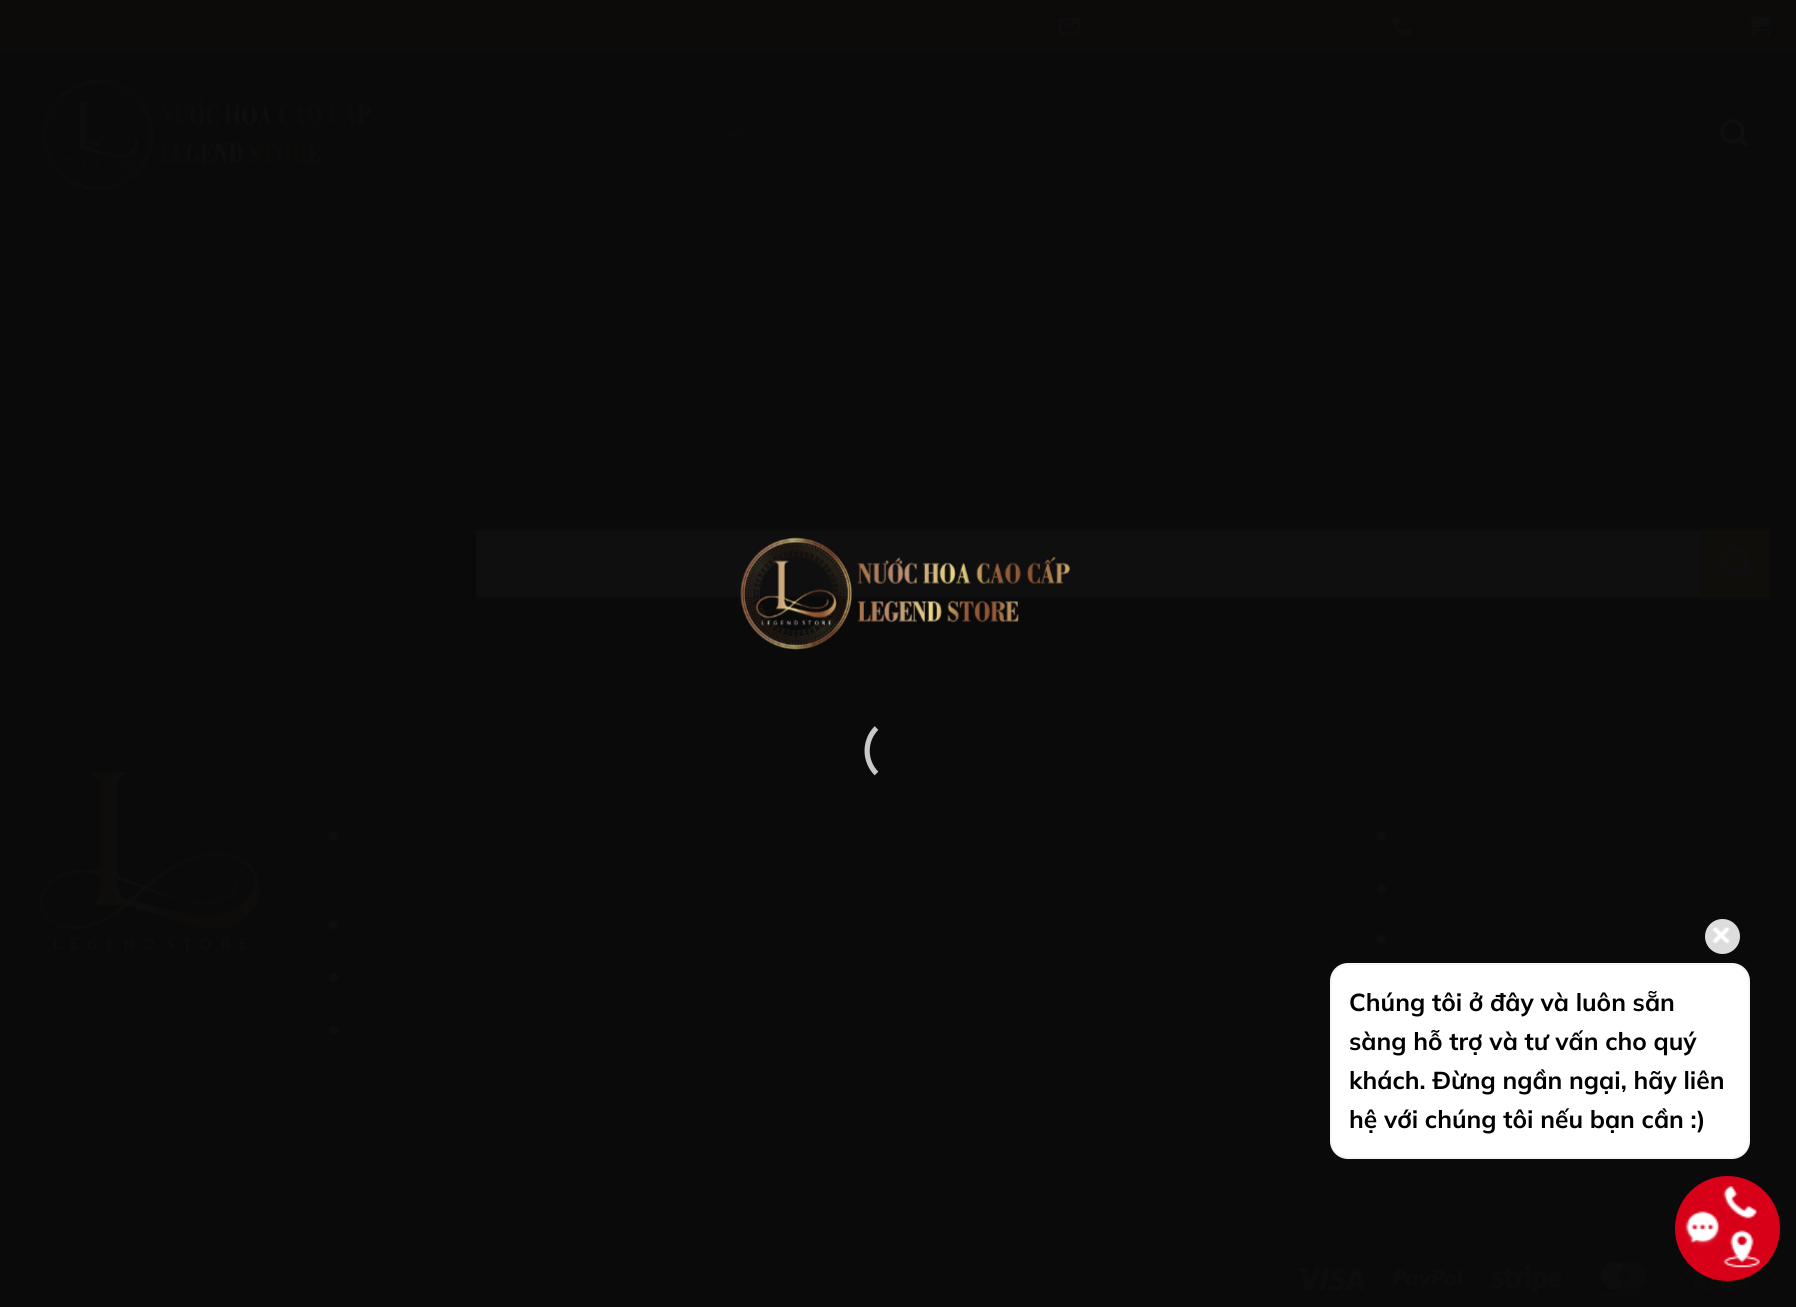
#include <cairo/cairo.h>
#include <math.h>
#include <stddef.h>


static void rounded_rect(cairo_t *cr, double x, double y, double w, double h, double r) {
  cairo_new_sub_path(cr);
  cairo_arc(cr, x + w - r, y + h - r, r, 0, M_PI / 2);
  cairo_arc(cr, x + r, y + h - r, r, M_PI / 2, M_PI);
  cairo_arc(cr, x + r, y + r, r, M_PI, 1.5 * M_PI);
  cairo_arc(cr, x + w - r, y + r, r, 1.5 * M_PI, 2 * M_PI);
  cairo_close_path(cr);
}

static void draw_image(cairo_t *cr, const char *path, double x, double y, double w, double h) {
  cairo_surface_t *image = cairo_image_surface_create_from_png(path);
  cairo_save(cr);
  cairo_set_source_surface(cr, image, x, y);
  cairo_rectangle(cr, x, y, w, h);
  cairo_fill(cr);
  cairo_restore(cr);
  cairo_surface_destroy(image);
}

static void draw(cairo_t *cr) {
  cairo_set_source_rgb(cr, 10 / 255.0, 10 / 255.0, 10 / 255.0);
  cairo_paint(cr);
  cairo_set_source_rgb(cr, 13 / 255.0, 10 / 255.0, 10 / 255.0);
  cairo_rectangle(cr, 0, 0, 1796, 53);
  cairo_fill(cr);
  draw_image(cr, "images/1.png", 1058, 17, 22, 18);
  draw_image(cr, "images/2.png", 1391, 16, 21, 21);
  draw_image(cr, "images/3.png", 1748, 15, 23, 22);
  draw_image(cr, "images/4.png", 42, 79, 330, 112);
  draw_image(cr, "images/5.png", 725, 129, 17, 10);
  draw_image(cr, "images/6.png", 1720, 119, 28, 28);
  cairo_set_source_rgb(cr, 15 / 255.0, 15 / 255.0, 15 / 255.0);
  cairo_rectangle(cr, 477, 531, 1223, 65);
  cairo_fill_preserve(cr);
  cairo_set_source_rgb(cr, 14 / 255.0, 14 / 255.0, 14 / 255.0);
  cairo_stroke(cr);
  cairo_set_source_rgb(cr, 15 / 255.0, 14 / 255.0, 10 / 255.0);
  cairo_rectangle(cr, 1702, 530, 68, 68);
  cairo_fill_preserve(cr);
  cairo_set_source_rgb(cr, 14 / 255.0, 13 / 255.0, 10 / 255.0);
  cairo_stroke(cr);
  draw_image(cr, "images/7.png", 1720, 546, 33, 34);
  draw_image(cr, "images/8.png", 740, 537, 330, 113);
  cairo_new_path(cr);
  cairo_move_to(cr, 876.5, 773.5);
  cairo_curve_to(cr, 864, 761, 864, 740.5, 876.5, 728);
  cairo_set_source_rgba(cr, 1, 1, 1, 0.78);
  cairo_set_line_width(cr, 5.2);
  cairo_stroke(cr);
  draw_image(cr, "images/9.png", 39, 772, 222, 178);
  cairo_set_source_rgb(cr, 14 / 255.0, 14 / 255.0, 13 / 255.0);
  cairo_arc(cr, 333.5, 835.5, 4.5, 0, 2 * M_PI);
  cairo_fill(cr);
  rounded_rect(cr, 329, 921, 9, 8, 4);
  cairo_fill(cr);
  cairo_arc(cr, 333.5, 977.5, 4.5, 0, 2 * M_PI);
  cairo_fill(cr);
  rounded_rect(cr, 329, 1026, 9, 8, 4);
  cairo_fill(cr);
  cairo_arc(cr, 1381.5, 835.5, 4.5, 0, 2 * M_PI);
  cairo_fill(cr);
  cairo_arc(cr, 1381.5, 888.5, 4.5, 0, 2 * M_PI);
  cairo_fill(cr);
  rounded_rect(cr, 1377, 935, 9, 8, 4);
  cairo_fill(cr);
  draw_image(cr, "images/10.png", 1295, 1267, 70, 24);
  draw_image(cr, "images/11.png", 1393, 1269, 70, 20);
  draw_image(cr, "images/12.png", 1491, 1264, 70, 30);
  draw_image(cr, "images/13.png", 1601, 1262, 45, 35);
  draw_image(cr, "images/14.png", 1694, 1271, 56, 19);
  cairo_set_source_rgb(cr, 1, 1, 1);
  rounded_rect(cr, 1331, 964, 418, 194, 17);
  cairo_fill_preserve(cr);
  cairo_set_source_rgb(cr, 247 / 255.0, 247 / 255.0, 249 / 255.0);
  cairo_set_line_width(cr, 2);
  cairo_stroke(cr);
  cairo_set_source_rgb(cr, 221 / 255.0, 221 / 255.0, 221 / 255.0);
  cairo_arc(cr, 1722.5, 936.5, 17.5, 0, 2 * M_PI);
  cairo_fill(cr);
  draw_image(cr, "images/15.png", 1712, 927, 18, 17);
  cairo_set_source_rgb(cr, 215 / 255.0, 0, 24 / 255.0);
  cairo_arc(cr, 1727.5, 1228.5, 52.5, 0, 2 * M_PI);
  cairo_fill(cr);
  draw_image(cr, "images/16.png", 1685, 1186, 75, 82);
  cairo_select_font_face(cr, "Mulish", CAIRO_FONT_SLANT_NORMAL, CAIRO_FONT_WEIGHT_BOLD);
  cairo_set_font_size(cr, 24.5);
  cairo_set_source_rgb(cr, 0, 0, 0);
  cairo_move_to(cr, 1349, 1011);
  cairo_show_text(cr, "Chúng tôi ở đây và luôn sẵn");
  cairo_move_to(cr, 1349, 1050);
  cairo_show_text(cr, "sàng hỗ trợ và tư vấn cho quý");
  cairo_move_to(cr, 1349, 1089);
  cairo_show_text(cr, "khách. Đừng ngần ngại, hãy liên");
  cairo_move_to(cr, 1349, 1128);
  cairo_show_text(cr, "hệ với chúng tôi nếu bạn cần :)");
}

int main(void) {
  cairo_surface_t *surface = cairo_image_surface_create(CAIRO_FORMAT_RGB24, 1796, 1307);
  cairo_t *cr = cairo_create(surface);
  cairo_font_options_t *options = cairo_font_options_create();
  cairo_font_options_set_hint_metrics(options, CAIRO_HINT_METRICS_OFF);
  cairo_font_options_set_hint_style(options, CAIRO_HINT_STYLE_NONE);
  cairo_set_font_options(cr, options);
  cairo_set_miter_limit(cr, 4);
  draw(cr);
  cairo_surface_write_to_png(surface, "out.png");
  cairo_font_options_destroy(options);
  cairo_destroy(cr);
  cairo_surface_destroy(surface);
  return 0;
}
